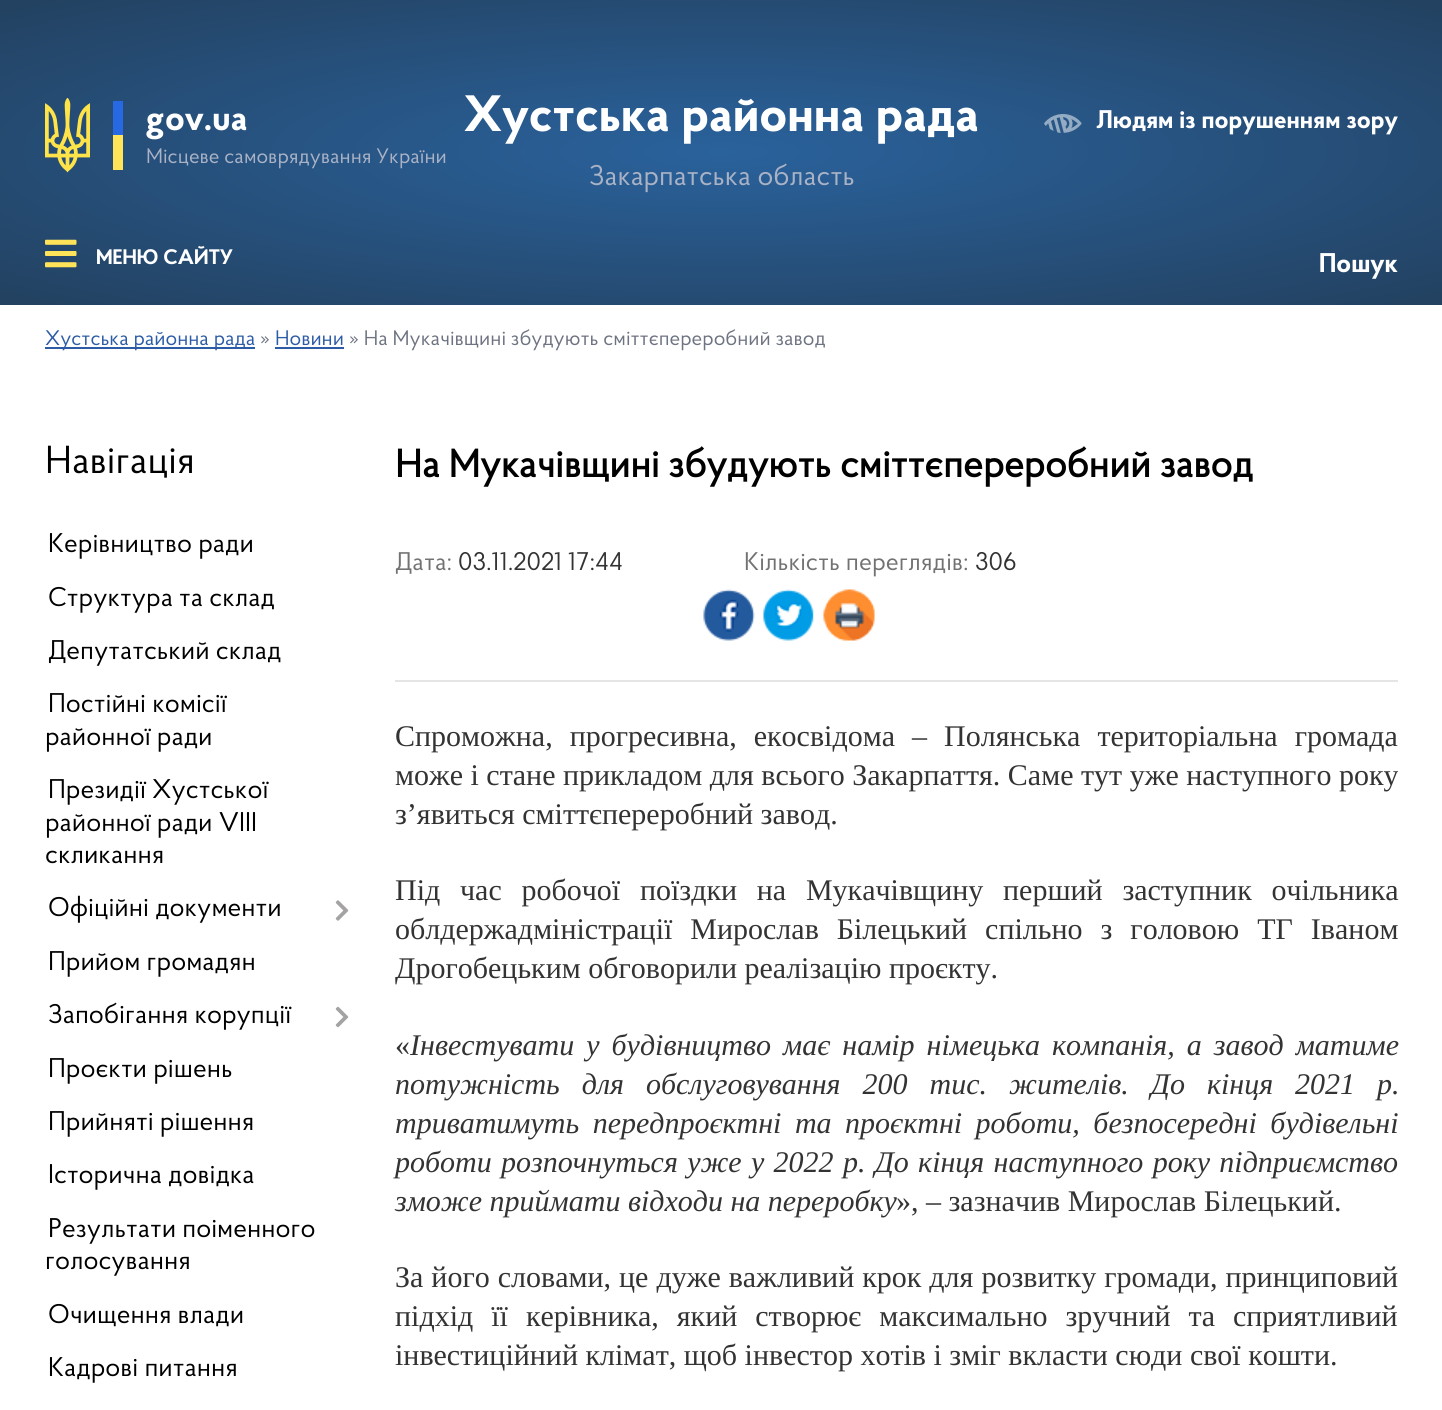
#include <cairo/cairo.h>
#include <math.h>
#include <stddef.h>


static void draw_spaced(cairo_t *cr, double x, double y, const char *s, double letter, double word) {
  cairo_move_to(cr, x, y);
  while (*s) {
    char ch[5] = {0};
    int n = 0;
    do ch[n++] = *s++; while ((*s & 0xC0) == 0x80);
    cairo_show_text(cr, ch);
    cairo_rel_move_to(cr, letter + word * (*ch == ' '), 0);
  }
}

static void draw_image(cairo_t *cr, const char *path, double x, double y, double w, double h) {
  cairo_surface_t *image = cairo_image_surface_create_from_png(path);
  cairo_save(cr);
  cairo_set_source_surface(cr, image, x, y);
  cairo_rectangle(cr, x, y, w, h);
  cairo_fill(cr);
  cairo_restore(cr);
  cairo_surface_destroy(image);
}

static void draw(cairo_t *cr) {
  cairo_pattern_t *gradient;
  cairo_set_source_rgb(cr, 1, 1, 1);
  cairo_paint(cr);
  gradient = cairo_pattern_create_radial(0, 0, 0, 0, 0, 1);
  cairo_pattern_set_matrix(gradient, &(cairo_matrix_t){1.0 / 1020, 0, 0, 1.0 / 215, -1.0 * 722 / 1020, -1.0 * 152 / 215});
  cairo_pattern_add_color_stop_rgba(gradient, 0, 42 / 255.0, 98 / 255.0, 156 / 255.0, 1);
  cairo_pattern_add_color_stop_rgba(gradient, 1, 35 / 255.0, 65 / 255.0, 96 / 255.0, 1);
  cairo_set_source(cr, gradient);
  cairo_pattern_destroy(gradient);
  cairo_rectangle(cr, 0, 0, 1442, 305);
  cairo_fill(cr);
  draw_image(cr, "images/1.png", 45, 98, 45, 75);
  cairo_set_source_rgb(cr, 38 / 255.0, 105 / 255.0, 227 / 255.0);
  cairo_rectangle(cr, 113, 101, 10, 34);
  cairo_fill(cr);
  cairo_set_source_rgb(cr, 1, 227 / 255.0, 88 / 255.0);
  cairo_rectangle(cr, 113, 135, 10, 35);
  cairo_fill(cr);
  draw_image(cr, "images/2.png", 1044, 114, 38, 19);
  draw_image(cr, "images/3.png", 45, 239, 32, 29);
  cairo_set_source_rgb(cr, 45 / 255.0, 92 / 255.0, 166 / 255.0);
  cairo_rectangle(cr, 45, 347, 210, 2);
  cairo_fill(cr);
  cairo_rectangle(cr, 275, 347, 69, 2);
  cairo_fill(cr);
  draw_image(cr, "images/4.png", 335, 900, 14, 21);
  draw_image(cr, "images/5.png", 335, 1006, 14, 22);
  draw_image(cr, "images/6.png", 703, 589, 52, 52);
  draw_image(cr, "images/7.png", 763, 589, 51, 52);
  draw_image(cr, "images/8.png", 823, 589, 52, 52);
  cairo_set_source_rgb(cr, 229 / 255.0, 229 / 255.0, 229 / 255.0);
  cairo_rectangle(cr, 395, 680, 1003, 2);
  cairo_fill(cr);
  cairo_select_font_face(cr, "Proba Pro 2", CAIRO_FONT_SLANT_NORMAL, CAIRO_FONT_WEIGHT_BOLD);
  cairo_set_font_size(cr, 36);
  cairo_set_source_rgb(cr, 1, 1, 1);
  cairo_move_to(cr, 146, 130);
  cairo_show_text(cr, "gov.ua");
  cairo_select_font_face(cr, "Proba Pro", CAIRO_FONT_SLANT_NORMAL, CAIRO_FONT_WEIGHT_NORMAL);
  cairo_set_font_size(cr, 21);
  cairo_set_source_rgb(cr, 170 / 255.0, 179 / 255.0, 198 / 255.0);
  cairo_move_to(cr, 146, 163);
  cairo_show_text(cr, "Місцеве самоврядування України");
  cairo_select_font_face(cr, "Proba Pro 2", CAIRO_FONT_SLANT_NORMAL, CAIRO_FONT_WEIGHT_BOLD);
  cairo_set_font_size(cr, 51);
  cairo_set_source_rgb(cr, 1, 1, 1);
  cairo_move_to(cr, 464, 131);
  cairo_show_text(cr, "Хустська районна рада");
  cairo_select_font_face(cr, "Proba Pro", CAIRO_FONT_SLANT_NORMAL, CAIRO_FONT_WEIGHT_NORMAL);
  cairo_set_font_size(cr, 28.5);
  cairo_set_source_rgb(cr, 170 / 255.0, 179 / 255.0, 198 / 255.0);
  cairo_move_to(cr, 589, 185);
  cairo_show_text(cr, "Закарпатська область");
  cairo_select_font_face(cr, "Proba Pro 2", CAIRO_FONT_SLANT_NORMAL, CAIRO_FONT_WEIGHT_BOLD);
  cairo_set_font_size(cr, 25.5);
  cairo_set_source_rgb(cr, 1, 1, 1);
  cairo_move_to(cr, 1096, 128);
  cairo_show_text(cr, "Людям із порушенням зору");
  cairo_set_font_size(cr, 21);
  cairo_move_to(cr, 96, 264);
  cairo_show_text(cr, "МЕНЮ САЙТУ");
  cairo_set_font_size(cr, 27);
  cairo_move_to(cr, 1319, 272);
  cairo_show_text(cr, "Пошук");
  cairo_select_font_face(cr, "Proba Pro", CAIRO_FONT_SLANT_NORMAL, CAIRO_FONT_WEIGHT_NORMAL);
  cairo_set_font_size(cr, 21);
  cairo_set_source_rgb(cr, 45 / 255.0, 92 / 255.0, 166 / 255.0);
  cairo_move_to(cr, 45, 345);
  cairo_show_text(cr, "Хустська районна рада");
  cairo_set_source_rgb(cr, 109 / 255.0, 115 / 255.0, 129 / 255.0);
  cairo_move_to(cr, 260, 345);
  cairo_show_text(cr, "»");
  cairo_set_source_rgb(cr, 45 / 255.0, 92 / 255.0, 166 / 255.0);
  cairo_move_to(cr, 275, 345);
  cairo_show_text(cr, "Новини");
  cairo_set_source_rgb(cr, 109 / 255.0, 115 / 255.0, 129 / 255.0);
  cairo_move_to(cr, 349, 345);
  cairo_show_text(cr, "» На Мукачівщині збудують сміттєпереробний завод");
  cairo_set_font_size(cr, 39);
  cairo_set_source_rgb(cr, 0, 0, 0);
  cairo_move_to(cr, 45, 473);
  cairo_show_text(cr, "Навігація");
  cairo_set_font_size(cr, 27);
  cairo_move_to(cr, 48, 552);
  cairo_show_text(cr, "Керівництво ради");
  cairo_move_to(cr, 48, 606);
  cairo_show_text(cr, "Структура та склад");
  cairo_move_to(cr, 48, 659);
  cairo_show_text(cr, "Депутатський склад");
  cairo_move_to(cr, 48, 712);
  cairo_show_text(cr, "Постійні комісії");
  cairo_move_to(cr, 45, 745);
  cairo_show_text(cr, "районної ради");
  cairo_move_to(cr, 48, 798);
  cairo_show_text(cr, "Президії Хустської");
  cairo_move_to(cr, 45, 831);
  cairo_show_text(cr, "районної ради VІІІ");
  cairo_move_to(cr, 45, 863);
  cairo_show_text(cr, "скликання");
  cairo_move_to(cr, 48, 916);
  cairo_show_text(cr, "Офіційні документи");
  cairo_move_to(cr, 48, 970);
  cairo_show_text(cr, "Прийом громадян");
  cairo_move_to(cr, 48, 1023);
  cairo_show_text(cr, "Запобігання корупції");
  cairo_move_to(cr, 48, 1077);
  cairo_show_text(cr, "Проєкти рішень");
  cairo_move_to(cr, 48, 1130);
  cairo_show_text(cr, "Прийняті рішення");
  cairo_move_to(cr, 48, 1183);
  cairo_show_text(cr, "Історична довідка");
  cairo_move_to(cr, 48, 1237);
  cairo_show_text(cr, "Результати поіменного");
  cairo_move_to(cr, 45, 1269);
  cairo_show_text(cr, "голосування");
  cairo_move_to(cr, 48, 1323);
  cairo_show_text(cr, "Очищення влади");
  cairo_move_to(cr, 48, 1376);
  cairo_show_text(cr, "Кадрові питання");
  cairo_select_font_face(cr, "Proba Pro", CAIRO_FONT_SLANT_NORMAL, CAIRO_FONT_WEIGHT_BOLD);
  cairo_set_font_size(cr, 39);
  cairo_move_to(cr, 395, 477);
  cairo_show_text(cr, "На Мукачівщині збудують сміттєпереробний завод");
  cairo_select_font_face(cr, "Proba Pro", CAIRO_FONT_SLANT_NORMAL, CAIRO_FONT_WEIGHT_NORMAL);
  cairo_set_font_size(cr, 25.5);
  cairo_set_source_rgb(cr, 114 / 255.0, 114 / 255.0, 114 / 255.0);
  cairo_move_to(cr, 395, 570);
  cairo_show_text(cr, "Дата:");
  cairo_set_source_rgb(cr, 51 / 255.0, 51 / 255.0, 51 / 255.0);
  cairo_move_to(cr, 458, 570);
  cairo_show_text(cr, "03.11.2021 17:44");
  cairo_set_source_rgb(cr, 114 / 255.0, 114 / 255.0, 114 / 255.0);
  cairo_move_to(cr, 744, 570);
  cairo_show_text(cr, "Кількість переглядів:");
  cairo_set_source_rgb(cr, 51 / 255.0, 51 / 255.0, 51 / 255.0);
  cairo_move_to(cr, 975, 570);
  cairo_show_text(cr, "306");
  cairo_select_font_face(cr, "Liberation Serif", CAIRO_FONT_SLANT_NORMAL, CAIRO_FONT_WEIGHT_NORMAL);
  cairo_set_font_size(cr, 30);
  draw_spaced(cr, 395, 746, "Спроможна, прогресивна, екосвідома – Полянська територіальна громада", 0, 9.5);
  cairo_move_to(cr, 395, 785);
  cairo_show_text(cr, "може і стане прикладом для всього Закарпаття. Саме тут уже наступного року");
  cairo_move_to(cr, 395, 824);
  cairo_show_text(cr, "з’явиться сміттєпереробний завод.");
  draw_spaced(cr, 395, 900, "Під час робочої поїздки на Мукачівщину перший заступник очільника", 0, 12.25);
  draw_spaced(cr, 395, 939, "облдержадміністрації Мирослав Білецький спільно з головою ТГ Іваном", 0, 10.5);
  cairo_move_to(cr, 395, 978);
  cairo_show_text(cr, "Дрогобецьким обговорили реалізацію проєкту.");
  cairo_move_to(cr, 395, 1055);
  cairo_show_text(cr, "«");
  cairo_select_font_face(cr, "Liberation Serif", CAIRO_FONT_SLANT_ITALIC, CAIRO_FONT_WEIGHT_NORMAL);
  draw_spaced(cr, 410, 1055, "Інвестувати у будівництво має намір німецька компанія, а завод матиме", 0, 4.5);
  draw_spaced(cr, 395, 1094, "потужність для обслуговування 200 тис. жителів. До кінця 2021 р.", 0, 14.5);
  draw_spaced(cr, 395, 1133, "триватимуть передпроєктні та проєктні роботи, безпосередні будівельні", 0, 6);
  draw_spaced(cr, 395, 1172, "роботи розпочнуться уже у 2022 р. До кінця наступного року підприємство", 0, 1.8);
  cairo_move_to(cr, 395, 1211);
  cairo_show_text(cr, "зможе приймати відходи на переробку");
  cairo_select_font_face(cr, "Liberation Serif", CAIRO_FONT_SLANT_NORMAL, CAIRO_FONT_WEIGHT_NORMAL);
  cairo_move_to(cr, 896, 1211);
  cairo_show_text(cr, "», – зазначив Мирослав Білецький.");
  draw_spaced(cr, 395, 1287, "За його словами, це дуже важливий крок для розвитку громади, принциповий", 0, 0.5);
  draw_spaced(cr, 395, 1326, "підхід її керівника, який створює максимально зручний та сприятливий", 0, 10.5);
  cairo_move_to(cr, 395, 1365);
  cairo_show_text(cr, "інвестиційний клімат, щоб інвестор хотів і зміг вкласти сюди свої кошти.");
}

int main(void) {
  cairo_surface_t *surface = cairo_image_surface_create(CAIRO_FORMAT_RGB24, 1442, 1410);
  cairo_t *cr = cairo_create(surface);
  cairo_font_options_t *options = cairo_font_options_create();
  cairo_font_options_set_hint_metrics(options, CAIRO_HINT_METRICS_OFF);
  cairo_font_options_set_hint_style(options, CAIRO_HINT_STYLE_NONE);
  cairo_set_font_options(cr, options);
  cairo_set_miter_limit(cr, 4);
  draw(cr);
  cairo_surface_write_to_png(surface, "out.png");
  cairo_font_options_destroy(options);
  cairo_destroy(cr);
  cairo_surface_destroy(surface);
  return 0;
}
